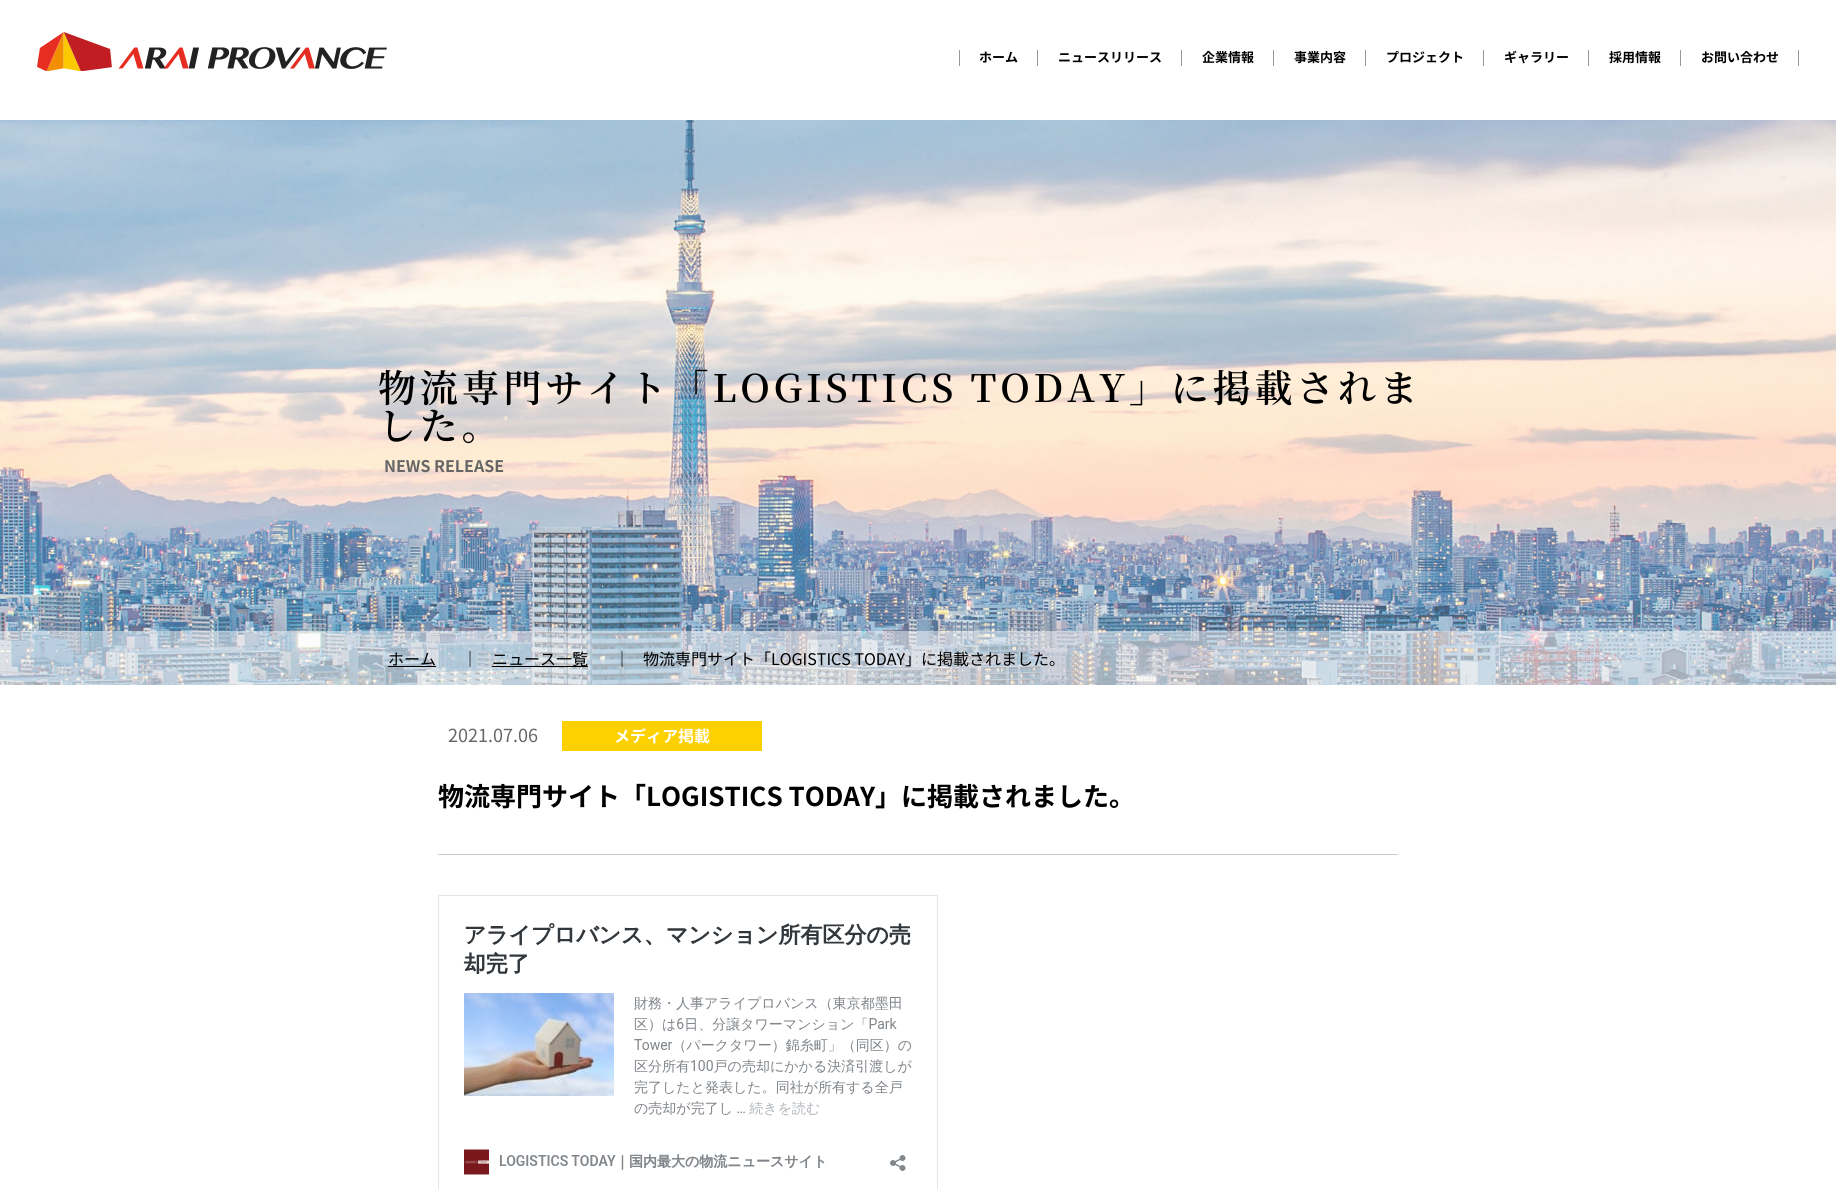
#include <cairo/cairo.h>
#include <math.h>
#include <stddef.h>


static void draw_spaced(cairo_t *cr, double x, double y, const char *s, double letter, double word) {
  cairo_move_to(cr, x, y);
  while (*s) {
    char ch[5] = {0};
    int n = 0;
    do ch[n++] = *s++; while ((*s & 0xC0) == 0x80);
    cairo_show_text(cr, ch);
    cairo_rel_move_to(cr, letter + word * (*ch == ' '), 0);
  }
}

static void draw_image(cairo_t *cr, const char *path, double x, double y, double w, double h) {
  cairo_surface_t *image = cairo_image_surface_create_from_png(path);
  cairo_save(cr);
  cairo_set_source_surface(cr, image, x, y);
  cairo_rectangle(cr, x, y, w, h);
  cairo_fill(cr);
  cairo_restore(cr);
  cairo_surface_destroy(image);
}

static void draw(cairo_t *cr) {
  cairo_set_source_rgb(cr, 1, 1, 1);
  cairo_paint(cr);
  draw_image(cr, "images/1.png", 37, 32, 350, 39);
  cairo_set_source_rgb(cr, 153 / 255.0, 153 / 255.0, 153 / 255.0);
  cairo_rectangle(cr, 959, 50, 1, 16);
  cairo_fill(cr);
  cairo_rectangle(cr, 1037, 50, 1, 16);
  cairo_fill(cr);
  cairo_rectangle(cr, 1181, 50, 1, 16);
  cairo_fill(cr);
  cairo_rectangle(cr, 1273, 50, 1, 16);
  cairo_fill(cr);
  cairo_rectangle(cr, 1365, 50, 1, 16);
  cairo_fill(cr);
  cairo_rectangle(cr, 1483, 50, 1, 16);
  cairo_fill(cr);
  cairo_rectangle(cr, 1588, 50, 1, 16);
  cairo_fill(cr);
  cairo_rectangle(cr, 1680, 50, 1, 16);
  cairo_fill(cr);
  cairo_rectangle(cr, 1798, 50, 1, 16);
  cairo_fill(cr);
  draw_image(cr, "images/2.png", 0, 120, 1836, 565);
  cairo_set_source_rgba(cr, 250 / 255.0, 250 / 255.0, 250 / 255.0, 0.5);
  cairo_rectangle(cr, 0, 631, 1836, 54);
  cairo_fill(cr);
  cairo_set_source_rgb(cr, 0, 0, 0);
  cairo_rectangle(cr, 388, 666, 48, 1);
  cairo_fill(cr);
  cairo_rectangle(cr, 492, 666, 96, 1);
  cairo_fill(cr);
  cairo_set_source_rgb(cr, 253 / 255.0, 209 / 255.0, 0);
  cairo_rectangle(cr, 562, 721, 200, 30);
  cairo_fill(cr);
  cairo_set_source_rgb(cr, 204 / 255.0, 204 / 255.0, 204 / 255.0);
  cairo_rectangle(cr, 438, 854, 960, 1);
  cairo_fill(cr);
  draw_image(cr, "images/3.png", 438, 895, 500, 294);
  cairo_select_font_face(cr, "Noto Sans JP", CAIRO_FONT_SLANT_NORMAL, CAIRO_FONT_WEIGHT_BOLD);
  cairo_set_font_size(cr, 13);
  cairo_set_source_rgb(cr, 0, 0, 0);
  cairo_move_to(cr, 979, 62);
  cairo_show_text(cr, "ホーム");
  cairo_move_to(cr, 1058, 62);
  cairo_show_text(cr, "ニュースリリース");
  cairo_move_to(cr, 1202, 62);
  cairo_show_text(cr, "企業情報");
  cairo_move_to(cr, 1294, 62);
  cairo_show_text(cr, "事業内容");
  cairo_move_to(cr, 1386, 62);
  cairo_show_text(cr, "プロジェクト");
  cairo_move_to(cr, 1504, 62);
  cairo_show_text(cr, "ギャラリー");
  cairo_move_to(cr, 1609, 62);
  cairo_show_text(cr, "採用情報");
  cairo_move_to(cr, 1701, 62);
  cairo_show_text(cr, "お問い合わせ");
  cairo_select_font_face(cr, "Noto Serif JP SemiBold", CAIRO_FONT_SLANT_NORMAL, CAIRO_FONT_WEIGHT_NORMAL);
  cairo_set_font_size(cr, 38);
  draw_spaced(cr, 378, 402, "物流専門サイト「LOGISTICS TODAY」に掲載されま", 3.8, 0);
  draw_spaced(cr, 378, 440, "した。", 3.8, 0);
  cairo_select_font_face(cr, "Noto Sans JP", CAIRO_FONT_SLANT_NORMAL, CAIRO_FONT_WEIGHT_BOLD);
  cairo_set_font_size(cr, 16);
  cairo_set_source_rgb(cr, 102 / 255.0, 102 / 255.0, 102 / 255.0);
  cairo_move_to(cr, 384, 472);
  cairo_show_text(cr, "NEWS RELEASE");
  cairo_select_font_face(cr, "Noto Sans JP", CAIRO_FONT_SLANT_NORMAL, CAIRO_FONT_WEIGHT_NORMAL);
  cairo_set_source_rgb(cr, 0, 0, 0);
  cairo_move_to(cr, 388, 665);
  cairo_show_text(cr, "ホーム");
  cairo_move_to(cr, 462, 665);
  cairo_show_text(cr, "｜");
  cairo_move_to(cr, 492, 665);
  cairo_show_text(cr, "ニュース一覧");
  cairo_move_to(cr, 614, 665);
  cairo_show_text(cr, "｜");
  cairo_move_to(cr, 643, 665);
  cairo_show_text(cr, "物流専門サイト「LOGISTICS TODAY」に掲載されました。");
  cairo_set_font_size(cr, 18);
  cairo_set_source_rgb(cr, 102 / 255.0, 102 / 255.0, 102 / 255.0);
  cairo_move_to(cr, 448, 742);
  cairo_show_text(cr, "2021.07.06");
  cairo_select_font_face(cr, "Noto Sans JP", CAIRO_FONT_SLANT_NORMAL, CAIRO_FONT_WEIGHT_BOLD);
  cairo_set_font_size(cr, 16);
  cairo_set_source_rgb(cr, 1, 1, 1);
  cairo_move_to(cr, 614, 742);
  cairo_show_text(cr, "メディア掲載");
  cairo_set_font_size(cr, 26);
  cairo_set_source_rgb(cr, 0, 0, 0);
  cairo_move_to(cr, 438, 806);
  cairo_show_text(cr, "物流専門サイト「LOGISTICS TODAY」に掲載されました。");
}

int main(void) {
  cairo_surface_t *surface = cairo_image_surface_create(CAIRO_FORMAT_RGB24, 1836, 1189);
  cairo_t *cr = cairo_create(surface);
  cairo_font_options_t *options = cairo_font_options_create();
  cairo_font_options_set_hint_metrics(options, CAIRO_HINT_METRICS_OFF);
  cairo_font_options_set_hint_style(options, CAIRO_HINT_STYLE_NONE);
  cairo_set_font_options(cr, options);
  cairo_set_miter_limit(cr, 4);
  draw(cr);
  cairo_surface_write_to_png(surface, "out.png");
  cairo_font_options_destroy(options);
  cairo_destroy(cr);
  cairo_surface_destroy(surface);
  return 0;
}
